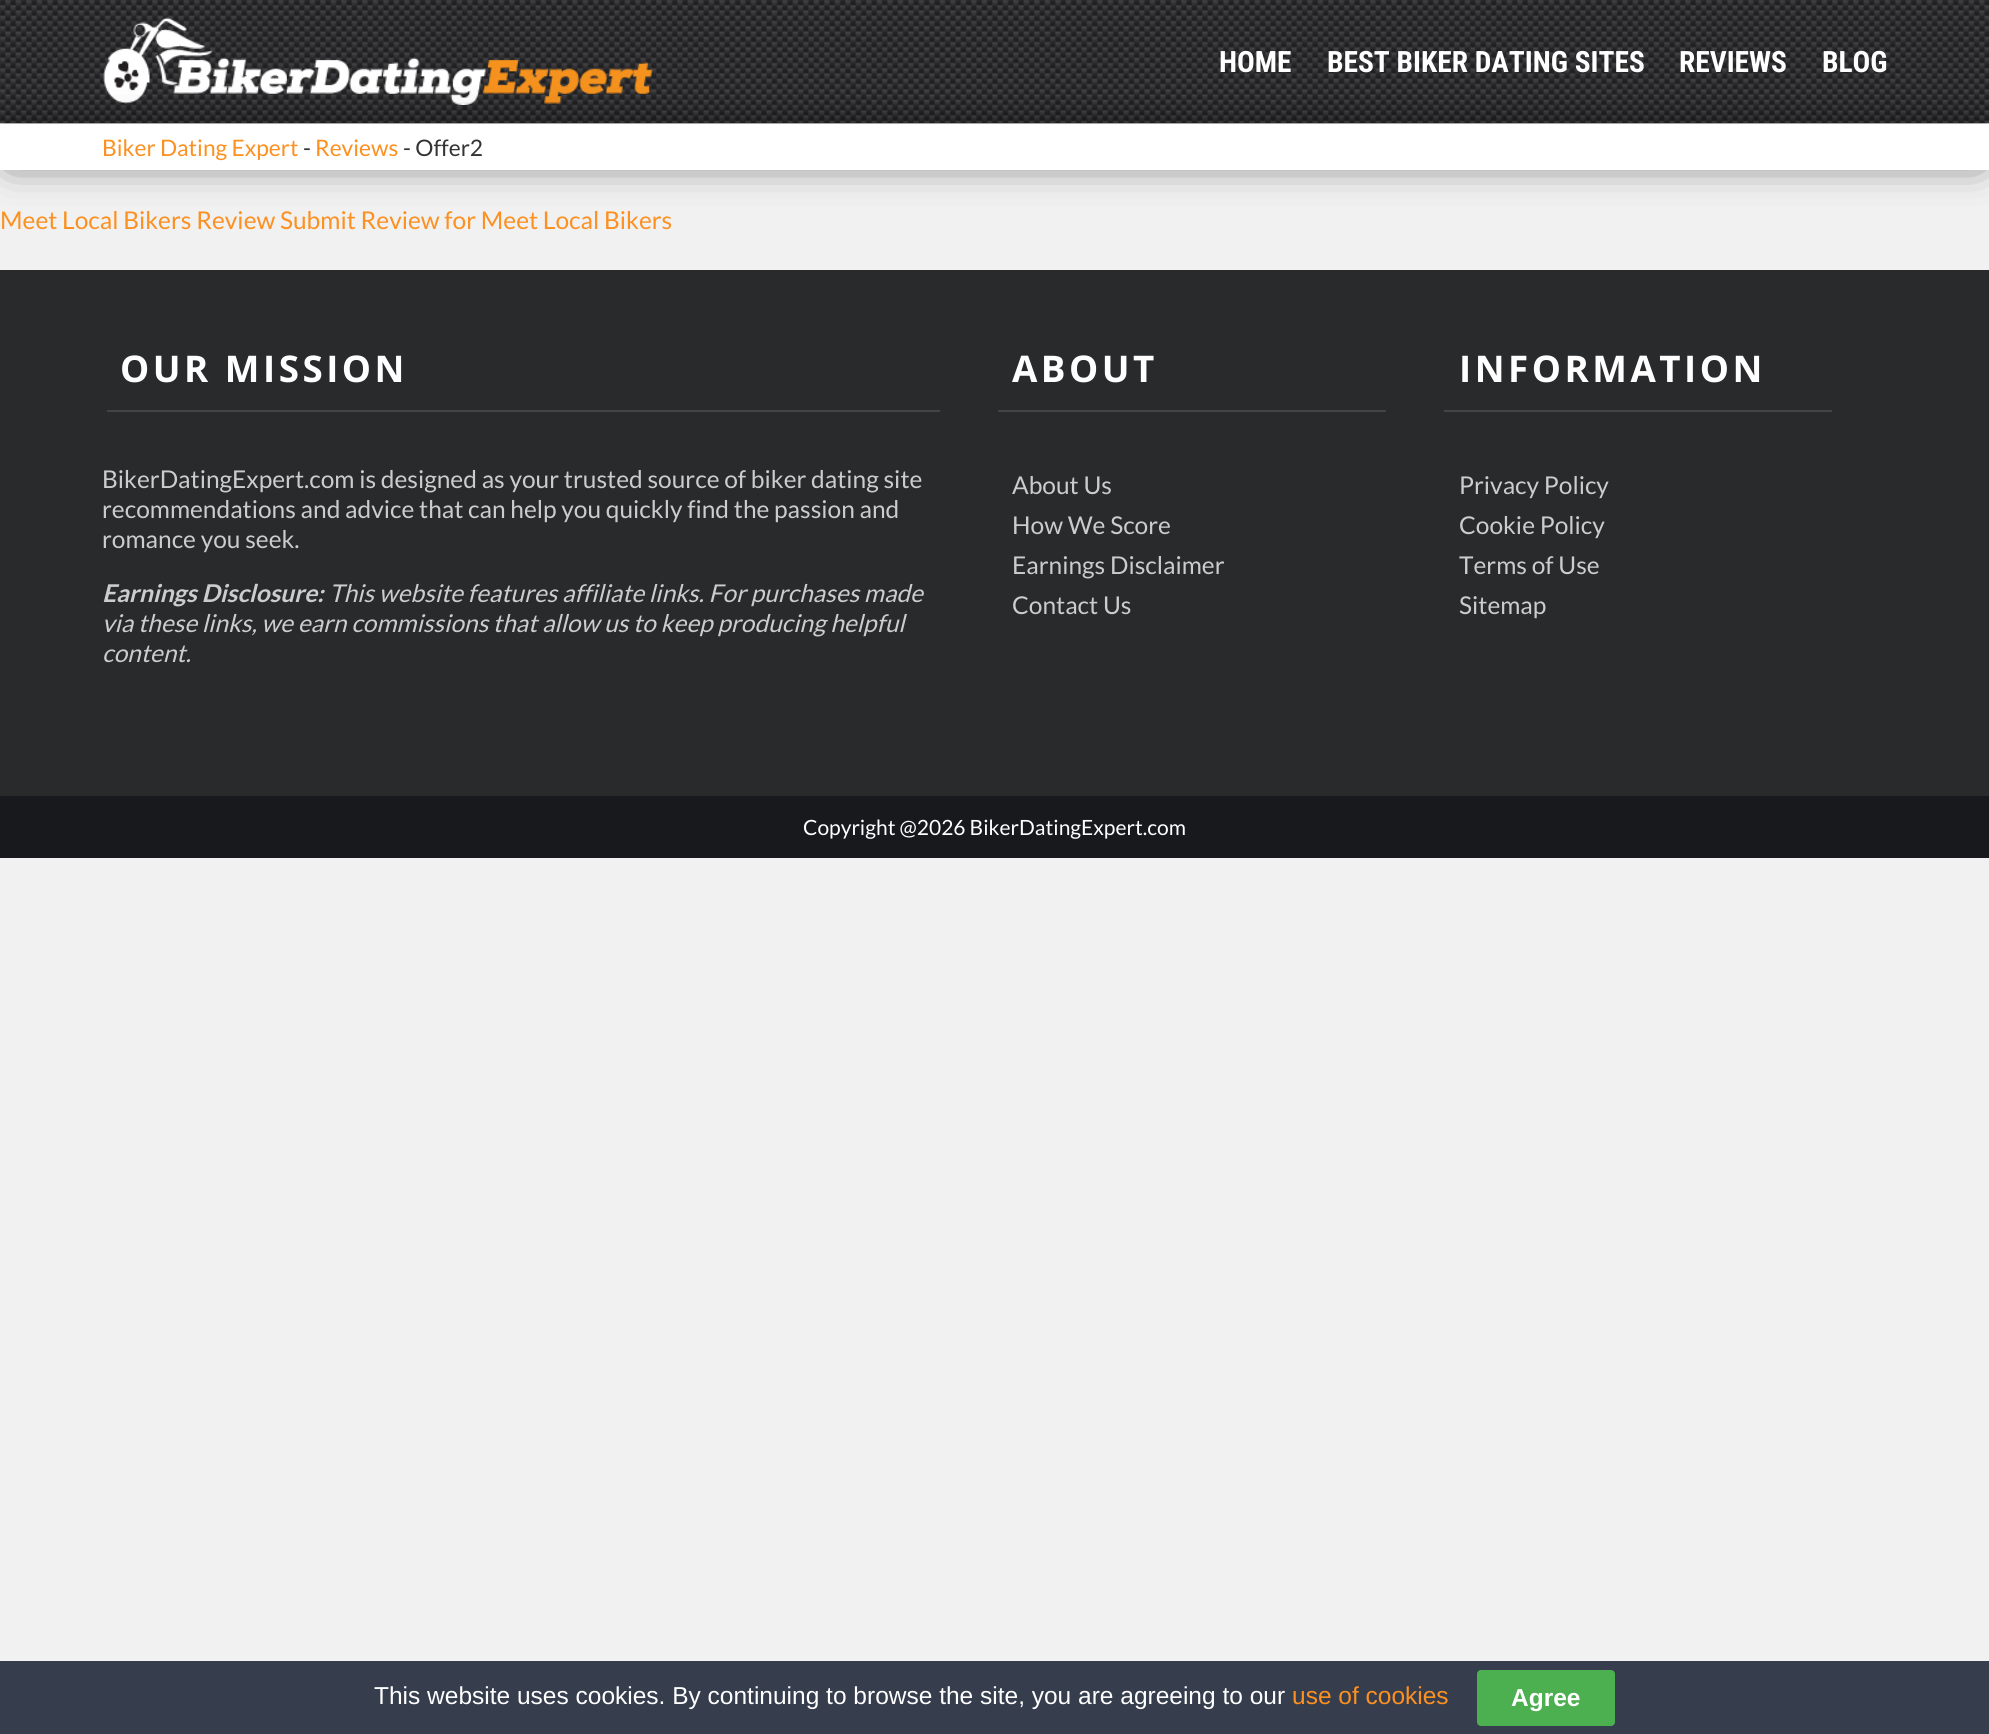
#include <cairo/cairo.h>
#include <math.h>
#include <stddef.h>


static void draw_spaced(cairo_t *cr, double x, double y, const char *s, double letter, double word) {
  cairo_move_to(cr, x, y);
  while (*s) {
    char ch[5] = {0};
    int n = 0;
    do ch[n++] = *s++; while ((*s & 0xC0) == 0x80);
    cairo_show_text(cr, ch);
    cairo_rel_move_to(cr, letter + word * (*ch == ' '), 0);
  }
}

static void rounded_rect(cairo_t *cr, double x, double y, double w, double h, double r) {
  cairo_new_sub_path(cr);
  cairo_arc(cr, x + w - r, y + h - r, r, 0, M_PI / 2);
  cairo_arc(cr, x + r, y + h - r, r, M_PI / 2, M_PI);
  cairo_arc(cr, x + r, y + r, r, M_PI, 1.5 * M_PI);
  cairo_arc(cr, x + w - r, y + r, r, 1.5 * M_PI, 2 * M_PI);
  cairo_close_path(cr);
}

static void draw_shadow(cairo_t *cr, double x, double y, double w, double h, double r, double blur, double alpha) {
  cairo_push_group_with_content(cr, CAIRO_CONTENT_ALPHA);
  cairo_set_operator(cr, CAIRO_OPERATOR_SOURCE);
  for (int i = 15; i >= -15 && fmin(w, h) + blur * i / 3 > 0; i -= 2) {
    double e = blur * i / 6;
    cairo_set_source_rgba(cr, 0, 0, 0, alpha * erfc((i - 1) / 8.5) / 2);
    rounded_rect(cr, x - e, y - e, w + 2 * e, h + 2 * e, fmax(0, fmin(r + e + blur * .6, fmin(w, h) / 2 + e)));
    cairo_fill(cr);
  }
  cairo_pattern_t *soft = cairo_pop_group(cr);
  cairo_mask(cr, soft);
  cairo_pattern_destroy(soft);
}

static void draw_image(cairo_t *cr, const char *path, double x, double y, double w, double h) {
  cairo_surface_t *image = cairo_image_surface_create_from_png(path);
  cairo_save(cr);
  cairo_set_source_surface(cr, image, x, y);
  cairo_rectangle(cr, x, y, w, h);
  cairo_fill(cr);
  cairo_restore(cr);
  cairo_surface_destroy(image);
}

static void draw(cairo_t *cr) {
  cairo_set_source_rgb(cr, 241 / 255.0, 241 / 255.0, 241 / 255.0);
  cairo_paint(cr);
  draw_image(cr, "images/1.png", 0, 0, 1989, 123);
  cairo_set_source_rgb(cr, 204 / 255.0, 204 / 255.0, 204 / 255.0);
  cairo_rectangle(cr, 0, 123, 1989, 1);
  cairo_fill(cr);
  draw_image(cr, "images/2.png", 103, 17, 550, 88);
  cairo_set_source_rgb(cr, 0, 0, 0);
  draw_shadow(cr, 18, 142, 1954, 10, 0, 22, 1);
  cairo_set_source_rgb(cr, 1, 1, 1);
  cairo_rectangle(cr, 0, 124, 1989, 46);
  cairo_fill(cr);
  cairo_set_source_rgb(cr, 41 / 255.0, 42 / 255.0, 44 / 255.0);
  cairo_rectangle(cr, 0, 270, 1989, 526);
  cairo_fill(cr);
  cairo_set_source_rgb(cr, 68 / 255.0, 68 / 255.0, 68 / 255.0);
  cairo_rectangle(cr, 107, 410, 833, 2);
  cairo_fill(cr);
  cairo_rectangle(cr, 998, 410, 388, 2);
  cairo_fill(cr);
  cairo_rectangle(cr, 1444, 410, 388, 2);
  cairo_fill(cr);
  cairo_set_source_rgb(cr, 24 / 255.0, 25 / 255.0, 29 / 255.0);
  cairo_rectangle(cr, 0, 796, 1989, 62);
  cairo_fill(cr);
  cairo_set_source_rgb(cr, 54 / 255.0, 61 / 255.0, 77 / 255.0);
  cairo_rectangle(cr, 0, 1661, 1989, 73);
  cairo_fill(cr);
  cairo_set_source_rgb(cr, 76 / 255.0, 175 / 255.0, 80 / 255.0);
  rounded_rect(cr, 1477, 1670, 138, 56, 4);
  cairo_fill(cr);
  cairo_select_font_face(cr, "Roboto Condensed", CAIRO_FONT_SLANT_NORMAL, CAIRO_FONT_WEIGHT_BOLD);
  cairo_set_font_size(cr, 29.4);
  cairo_set_source_rgb(cr, 1, 1, 1);
  cairo_move_to(cr, 1219, 72);
  cairo_show_text(cr, "HOME");
  cairo_move_to(cr, 1327, 72);
  cairo_show_text(cr, "BEST BIKER DATING SITES");
  cairo_move_to(cr, 1679, 72);
  cairo_show_text(cr, "REVIEWS");
  cairo_move_to(cr, 1822, 72);
  cairo_show_text(cr, "BLOG");
  cairo_select_font_face(cr, "Lato", CAIRO_FONT_SLANT_NORMAL, CAIRO_FONT_WEIGHT_NORMAL);
  cairo_set_font_size(cr, 22.75);
  cairo_set_source_rgb(cr, 252 / 255.0, 144 / 255.0, 33 / 255.0);
  cairo_move_to(cr, 102, 156);
  cairo_show_text(cr, "Biker Dating Expert");
  cairo_set_source_rgb(cr, 51 / 255.0, 51 / 255.0, 51 / 255.0);
  cairo_move_to(cr, 303, 156);
  cairo_show_text(cr, "-");
  cairo_set_source_rgb(cr, 252 / 255.0, 144 / 255.0, 33 / 255.0);
  cairo_move_to(cr, 315, 156);
  cairo_show_text(cr, "Reviews");
  cairo_set_source_rgb(cr, 51 / 255.0, 51 / 255.0, 51 / 255.0);
  cairo_move_to(cr, 403, 156);
  cairo_show_text(cr, "- Offer2");
  cairo_set_font_size(cr, 24.5);
  cairo_set_source_rgb(cr, 252 / 255.0, 144 / 255.0, 33 / 255.0);
  cairo_move_to(cr, 0, 229);
  cairo_show_text(cr, "Meet Local Bikers Review Submit Review for Meet Local Bikers");
  cairo_select_font_face(cr, "Open Sans", CAIRO_FONT_SLANT_NORMAL, CAIRO_FONT_WEIGHT_BOLD);
  cairo_set_font_size(cr, 36.75);
  cairo_set_source_rgb(cr, 1, 1, 1);
  draw_spaced(cr, 120, 382, "OUR MISSION", 3.5, 0);
  cairo_select_font_face(cr, "Lato", CAIRO_FONT_SLANT_NORMAL, CAIRO_FONT_WEIGHT_NORMAL);
  cairo_set_font_size(cr, 24.5);
  cairo_set_source_rgb(cr, 204 / 255.0, 204 / 255.0, 204 / 255.0);
  cairo_move_to(cr, 102, 488);
  cairo_show_text(cr, "BikerDatingExpert.com is designed as your trusted source of biker dating site");
  cairo_move_to(cr, 102, 518);
  cairo_show_text(cr, "recommendations and advice that can help you quickly find the passion and");
  cairo_move_to(cr, 102, 548);
  cairo_show_text(cr, "romance you seek.");
  cairo_select_font_face(cr, "Lato", CAIRO_FONT_SLANT_ITALIC, CAIRO_FONT_WEIGHT_BOLD);
  cairo_move_to(cr, 102, 602);
  cairo_show_text(cr, "Earnings Disclosure:");
  cairo_select_font_face(cr, "Lato", CAIRO_FONT_SLANT_ITALIC, CAIRO_FONT_WEIGHT_NORMAL);
  cairo_move_to(cr, 329, 602);
  cairo_show_text(cr, "This website features affiliate links. For purchases made");
  cairo_move_to(cr, 102, 632);
  cairo_show_text(cr, "via these links, we earn commissions that allow us to keep producing helpful");
  cairo_move_to(cr, 102, 662);
  cairo_show_text(cr, "content.");
  cairo_select_font_face(cr, "Open Sans", CAIRO_FONT_SLANT_NORMAL, CAIRO_FONT_WEIGHT_BOLD);
  cairo_set_font_size(cr, 36.75);
  cairo_set_source_rgb(cr, 1, 1, 1);
  draw_spaced(cr, 1012, 382, "ABOUT", 3.5, 0);
  cairo_select_font_face(cr, "Lato", CAIRO_FONT_SLANT_NORMAL, CAIRO_FONT_WEIGHT_NORMAL);
  cairo_set_font_size(cr, 24.5);
  cairo_set_source_rgb(cr, 204 / 255.0, 204 / 255.0, 204 / 255.0);
  cairo_move_to(cr, 1012, 494);
  cairo_show_text(cr, "About Us");
  cairo_move_to(cr, 1012, 534);
  cairo_show_text(cr, "How We Score");
  cairo_move_to(cr, 1012, 574);
  cairo_show_text(cr, "Earnings Disclaimer");
  cairo_move_to(cr, 1012, 614);
  cairo_show_text(cr, "Contact Us");
  cairo_select_font_face(cr, "Open Sans", CAIRO_FONT_SLANT_NORMAL, CAIRO_FONT_WEIGHT_BOLD);
  cairo_set_font_size(cr, 36.75);
  cairo_set_source_rgb(cr, 1, 1, 1);
  draw_spaced(cr, 1459, 382, "INFORMATION", 3.5, 0);
  cairo_select_font_face(cr, "Lato", CAIRO_FONT_SLANT_NORMAL, CAIRO_FONT_WEIGHT_NORMAL);
  cairo_set_font_size(cr, 24.5);
  cairo_set_source_rgb(cr, 204 / 255.0, 204 / 255.0, 204 / 255.0);
  cairo_move_to(cr, 1459, 494);
  cairo_show_text(cr, "Privacy Policy");
  cairo_move_to(cr, 1459, 534);
  cairo_show_text(cr, "Cookie Policy");
  cairo_move_to(cr, 1459, 574);
  cairo_show_text(cr, "Terms of Use");
  cairo_move_to(cr, 1459, 614);
  cairo_show_text(cr, "Sitemap");
  cairo_set_font_size(cr, 21);
  cairo_set_source_rgb(cr, 1, 1, 1);
  cairo_move_to(cr, 803, 835);
  cairo_show_text(cr, "Copyright @2026 BikerDatingExpert.com");
  cairo_select_font_face(cr, "Liberation Sans", CAIRO_FONT_SLANT_NORMAL, CAIRO_FONT_WEIGHT_NORMAL);
  cairo_set_font_size(cr, 24.5);
  cairo_move_to(cr, 374, 1704);
  cairo_show_text(cr, "This website uses cookies. By continuing to browse the site, you are agreeing to our");
  cairo_set_source_rgb(cr, 252 / 255.0, 144 / 255.0, 33 / 255.0);
  cairo_move_to(cr, 1292, 1704);
  cairo_show_text(cr, "use of cookies");
  cairo_select_font_face(cr, "Liberation Sans", CAIRO_FONT_SLANT_NORMAL, CAIRO_FONT_WEIGHT_BOLD);
  cairo_set_source_rgb(cr, 1, 1, 1);
  cairo_move_to(cr, 1511, 1706);
  cairo_show_text(cr, "Agree");
}

int main(void) {
  cairo_surface_t *surface = cairo_image_surface_create(CAIRO_FORMAT_RGB24, 1989, 1734);
  cairo_t *cr = cairo_create(surface);
  cairo_font_options_t *options = cairo_font_options_create();
  cairo_font_options_set_hint_metrics(options, CAIRO_HINT_METRICS_OFF);
  cairo_font_options_set_hint_style(options, CAIRO_HINT_STYLE_NONE);
  cairo_set_font_options(cr, options);
  cairo_set_miter_limit(cr, 4);
  draw(cr);
  cairo_surface_write_to_png(surface, "out.png");
  cairo_font_options_destroy(options);
  cairo_destroy(cr);
  cairo_surface_destroy(surface);
  return 0;
}
